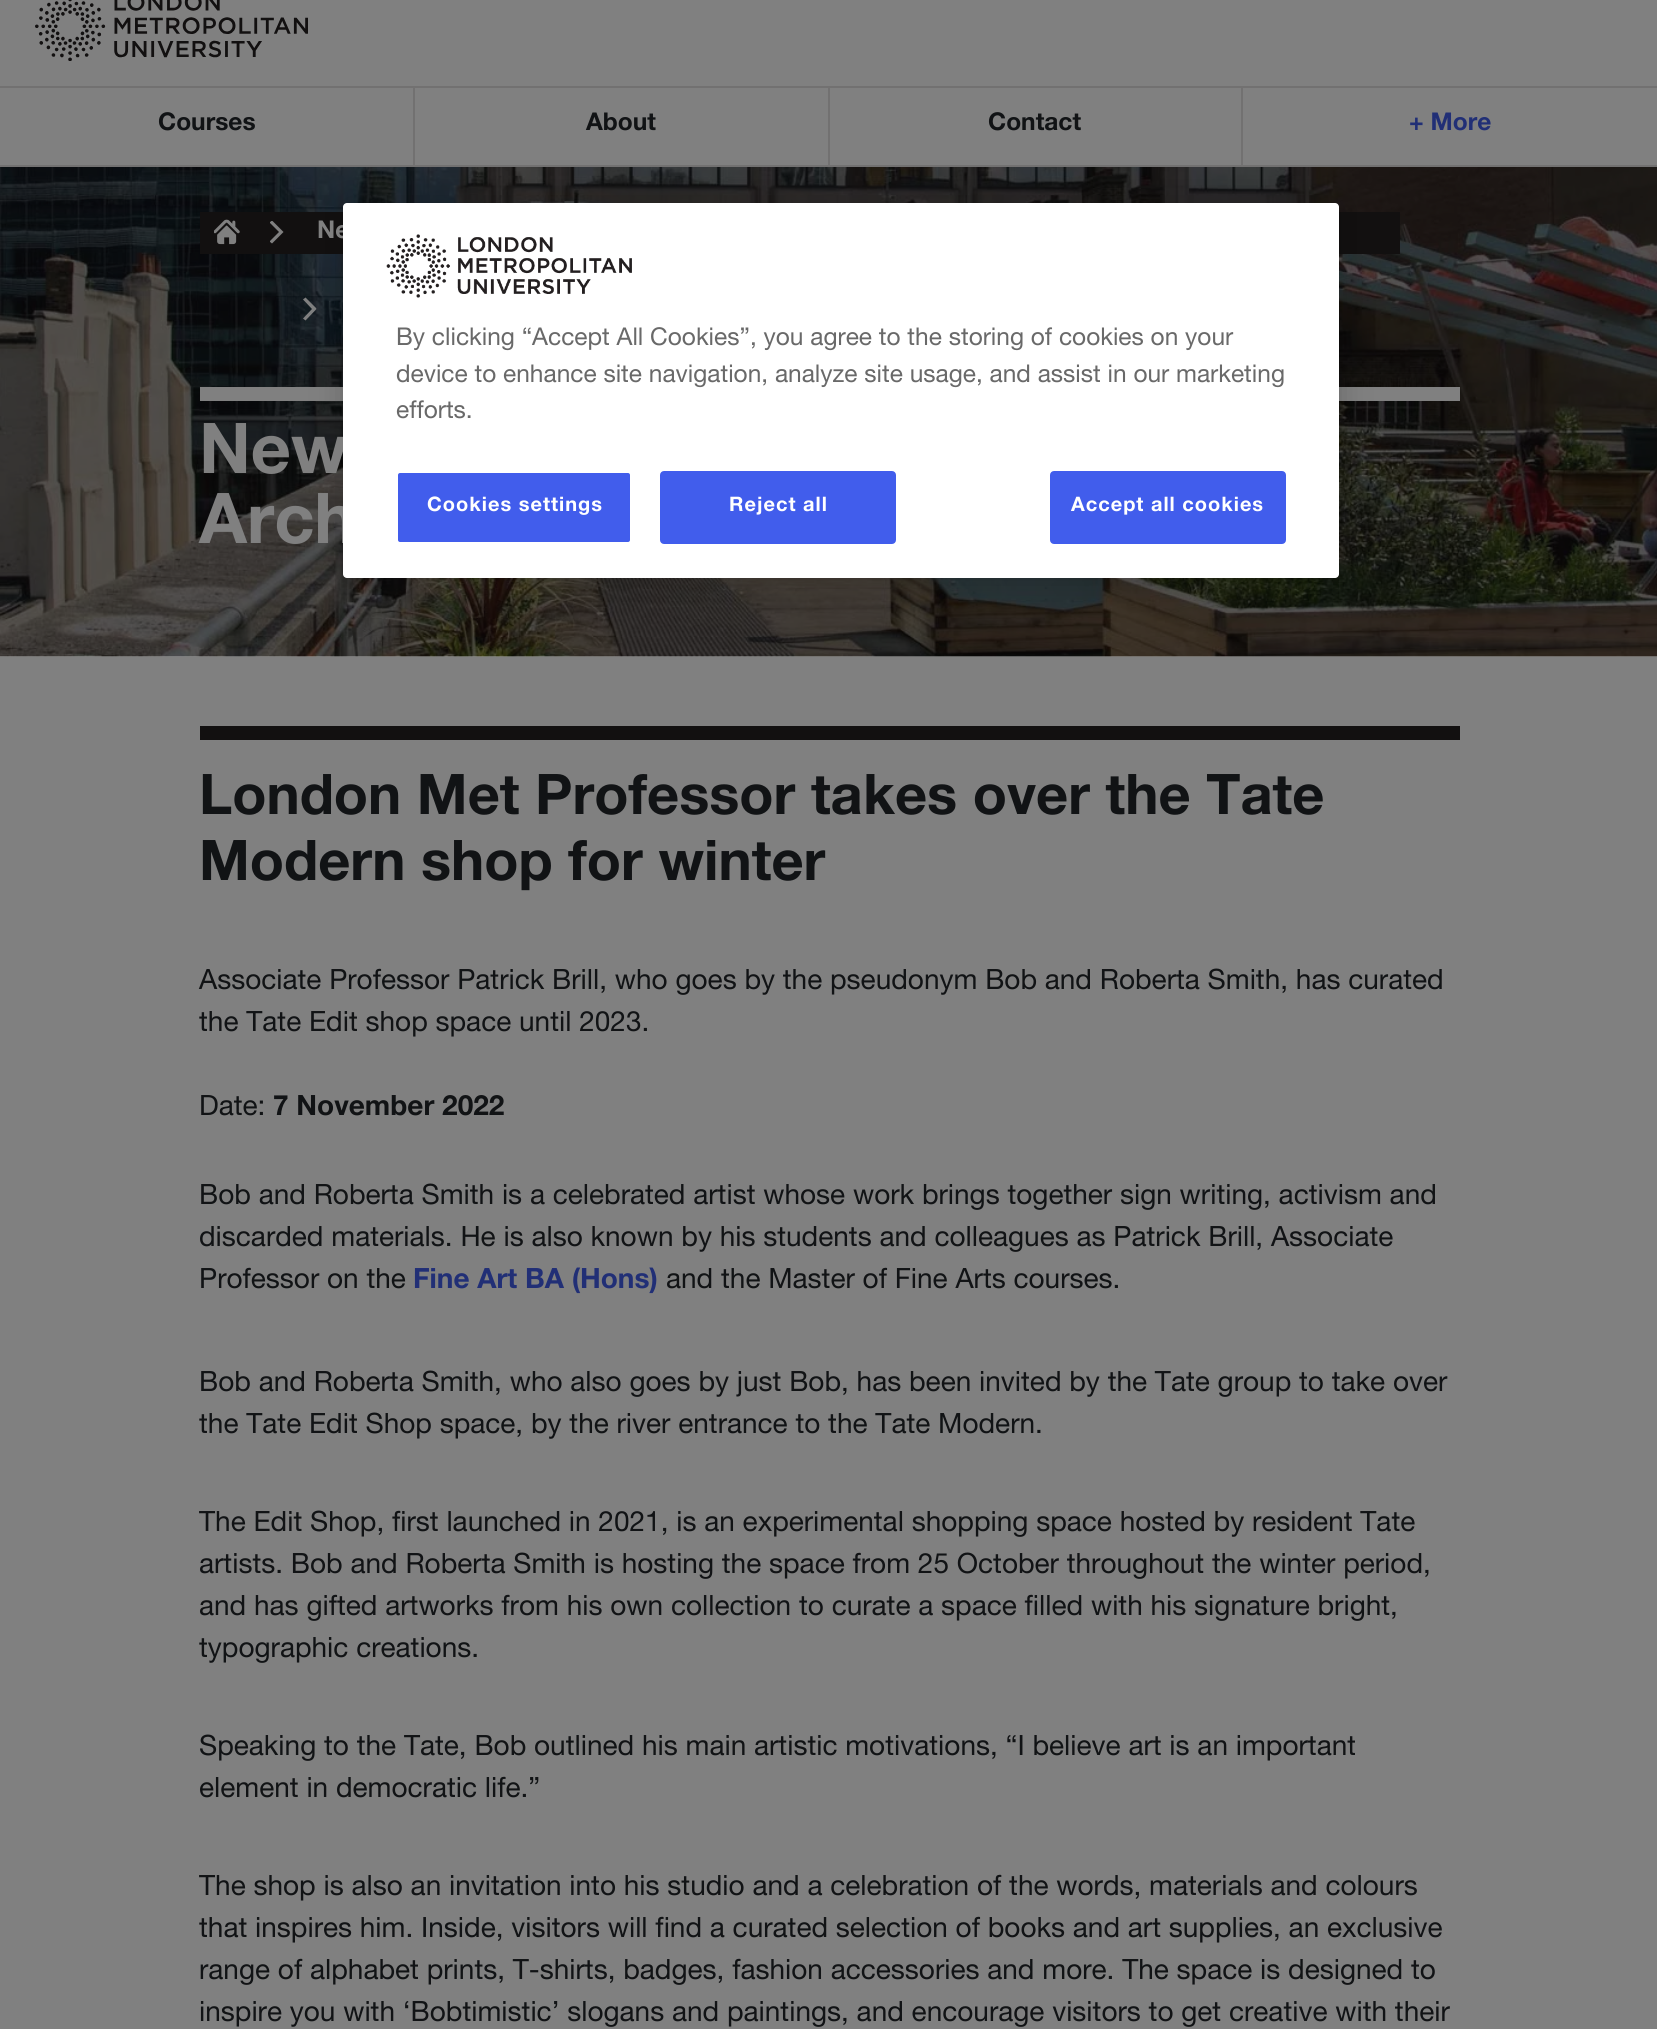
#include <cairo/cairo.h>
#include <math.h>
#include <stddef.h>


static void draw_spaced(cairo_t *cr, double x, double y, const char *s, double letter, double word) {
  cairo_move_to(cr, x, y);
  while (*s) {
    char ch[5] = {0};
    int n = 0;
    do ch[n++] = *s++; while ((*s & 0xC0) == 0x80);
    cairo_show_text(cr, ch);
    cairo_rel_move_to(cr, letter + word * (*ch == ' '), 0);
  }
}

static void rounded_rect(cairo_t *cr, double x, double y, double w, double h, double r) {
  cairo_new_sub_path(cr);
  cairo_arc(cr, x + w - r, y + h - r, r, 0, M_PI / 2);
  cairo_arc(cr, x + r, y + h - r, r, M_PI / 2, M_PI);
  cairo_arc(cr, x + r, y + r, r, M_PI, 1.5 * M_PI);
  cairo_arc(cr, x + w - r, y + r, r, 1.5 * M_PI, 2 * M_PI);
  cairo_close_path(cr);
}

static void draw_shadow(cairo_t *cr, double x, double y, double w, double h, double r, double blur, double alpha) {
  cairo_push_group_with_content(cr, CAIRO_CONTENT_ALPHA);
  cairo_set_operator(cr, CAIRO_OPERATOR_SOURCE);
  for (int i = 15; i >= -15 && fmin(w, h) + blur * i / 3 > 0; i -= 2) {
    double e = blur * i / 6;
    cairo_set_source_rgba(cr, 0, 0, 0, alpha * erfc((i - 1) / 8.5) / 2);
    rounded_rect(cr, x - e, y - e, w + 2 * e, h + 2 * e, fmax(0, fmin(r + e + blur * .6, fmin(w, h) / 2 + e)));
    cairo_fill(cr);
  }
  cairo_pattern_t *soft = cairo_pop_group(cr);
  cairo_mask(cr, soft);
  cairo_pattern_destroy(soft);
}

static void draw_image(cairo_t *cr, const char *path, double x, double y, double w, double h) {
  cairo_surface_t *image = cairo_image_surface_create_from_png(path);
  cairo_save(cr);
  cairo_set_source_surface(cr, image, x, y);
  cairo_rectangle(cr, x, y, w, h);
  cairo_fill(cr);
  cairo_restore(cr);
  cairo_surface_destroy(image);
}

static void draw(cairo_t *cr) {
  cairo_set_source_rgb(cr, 128 / 255.0, 128 / 255.0, 128 / 255.0);
  cairo_paint(cr);
  cairo_set_source_rgb(cr, 114 / 255.0, 113 / 255.0, 113 / 255.0);
  cairo_rectangle(cr, 0, 165, 1657, 2);
  cairo_fill(cr);
  cairo_rectangle(cr, 0, 86, 1657, 2);
  cairo_fill(cr);
  draw_image(cr, "images/1.png", 35, 0, 273, 61);
  cairo_rectangle(cr, 413, 88, 2, 77);
  cairo_fill(cr);
  cairo_rectangle(cr, 828, 88, 2, 77);
  cairo_fill(cr);
  cairo_rectangle(cr, 1241, 88, 2, 77);
  cairo_fill(cr);
  draw_image(cr, "images/2.png", 0, 167, 1657, 490);
  cairo_set_source_rgb(cr, 18 / 255.0, 16 / 255.0, 16 / 255.0);
  cairo_rectangle(cr, 200, 212, 1200, 42);
  cairo_fill(cr);
  draw_image(cr, "images/3.png", 214, 219, 26, 26);
  cairo_save(cr);
  cairo_rectangle(cr, 270, 221, 14, 24);
  cairo_clip(cr);
  cairo_set_source_rgb(cr, 128 / 255.0, 128 / 255.0, 128 / 255.0);
  cairo_set_fill_rule(cr, CAIRO_FILL_RULE_EVEN_ODD);
  cairo_new_path(cr);
  cairo_move_to(cr, 283.5, 232);
  cairo_line_to(cr, 272, 243.5);
  cairo_line_to(cr, 269.5, 241.5);
  cairo_line_to(cr, 279, 232);
  cairo_line_to(cr, 269.5, 222.5);
  cairo_line_to(cr, 272, 220.5);
  cairo_line_to(cr, 282.5, 231);
  cairo_close_path(cr);
  cairo_fill(cr);
  cairo_restore(cr);
  cairo_set_source_rgb(cr, 128 / 255.0, 128 / 255.0, 128 / 255.0);
  cairo_set_fill_rule(cr, CAIRO_FILL_RULE_EVEN_ODD);
  cairo_new_path(cr);
  cairo_move_to(cr, 316.5, 309);
  cairo_line_to(cr, 305.5, 320.5);
  cairo_line_to(cr, 303, 318.5);
  cairo_line_to(cr, 312, 309);
  cairo_line_to(cr, 303, 299.5);
  cairo_line_to(cr, 305.5, 297.5);
  cairo_line_to(cr, 316, 308);
  cairo_close_path(cr);
  cairo_fill(cr);
  cairo_rectangle(cr, 200, 387, 1260, 14);
  cairo_fill(cr);
  cairo_set_source_rgb(cr, 18 / 255.0, 16 / 255.0, 16 / 255.0);
  cairo_rectangle(cr, 200, 726, 1260, 14);
  cairo_fill(cr);
  cairo_set_source_rgb(cr, 0, 0, 0);
  draw_shadow(cr, 343, 203, 996, 375, 4, 16, 0.2);
  cairo_select_font_face(cr, "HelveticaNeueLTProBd", CAIRO_FONT_SLANT_NORMAL, CAIRO_FONT_WEIGHT_BOLD);
  cairo_set_font_size(cr, 24.5);
  cairo_set_source_rgb(cr, 17 / 255.0, 19 / 255.0, 21 / 255.0);
  cairo_move_to(cr, 158, 130);
  cairo_show_text(cr, "Courses");
  cairo_move_to(cr, 586, 130);
  cairo_show_text(cr, "About");
  cairo_move_to(cr, 988, 130);
  cairo_show_text(cr, "Contact");
  cairo_set_source_rgb(cr, 33 / 255.0, 47 / 255.0, 118 / 255.0);
  cairo_move_to(cr, 1409, 130);
  cairo_show_text(cr, "+ More");
  cairo_set_source_rgb(cr, 128 / 255.0, 128 / 255.0, 128 / 255.0);
  cairo_move_to(cr, 317, 238);
  cairo_show_text(cr, "Ne");
  cairo_set_font_size(cr, 70);
  cairo_move_to(cr, 199, 473);
  cairo_show_text(cr, "New");
  cairo_move_to(cr, 199, 543);
  cairo_show_text(cr, "Arch");
  cairo_set_font_size(cr, 56);
  cairo_set_source_rgb(cr, 17 / 255.0, 19 / 255.0, 21 / 255.0);
  cairo_move_to(cr, 199, 814);
  cairo_show_text(cr, "London Met Professor takes over the Tate");
  cairo_move_to(cr, 199, 880);
  cairo_show_text(cr, "Modern shop for winter");
  cairo_select_font_face(cr, "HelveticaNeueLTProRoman", CAIRO_FONT_SLANT_NORMAL, CAIRO_FONT_WEIGHT_NORMAL);
  cairo_set_font_size(cr, 28);
  cairo_move_to(cr, 199, 989);
  cairo_show_text(cr, "Associate Professor Patrick Brill, who goes by the pseudonym Bob and Roberta Smith, has curated");
  cairo_move_to(cr, 199, 1031);
  cairo_show_text(cr, "the Tate Edit shop space until 2023.");
  cairo_move_to(cr, 199, 1115);
  cairo_show_text(cr, "Date:");
  cairo_select_font_face(cr, "HelveticaNeueLTProBd", CAIRO_FONT_SLANT_NORMAL, CAIRO_FONT_WEIGHT_BOLD);
  cairo_move_to(cr, 273, 1115);
  cairo_show_text(cr, "7 November 2022");
  cairo_select_font_face(cr, "HelveticaNeueLTProRoman", CAIRO_FONT_SLANT_NORMAL, CAIRO_FONT_WEIGHT_NORMAL);
  cairo_move_to(cr, 199, 1204);
  cairo_show_text(cr, "Bob and Roberta Smith is a celebrated artist whose work brings together sign writing, activism and");
  cairo_move_to(cr, 199, 1246);
  cairo_show_text(cr, "discarded materials. He is also known by his students and colleagues as Patrick Brill, Associate");
  cairo_move_to(cr, 199, 1288);
  cairo_show_text(cr, "Professor on the");
  cairo_select_font_face(cr, "HelveticaNeueLTProBd", CAIRO_FONT_SLANT_NORMAL, CAIRO_FONT_WEIGHT_BOLD);
  cairo_set_source_rgb(cr, 33 / 255.0, 47 / 255.0, 118 / 255.0);
  cairo_move_to(cr, 413, 1288);
  cairo_show_text(cr, "Fine Art BA (Hons)");
  cairo_select_font_face(cr, "HelveticaNeueLTProRoman", CAIRO_FONT_SLANT_NORMAL, CAIRO_FONT_WEIGHT_NORMAL);
  cairo_set_source_rgb(cr, 17 / 255.0, 19 / 255.0, 21 / 255.0);
  cairo_move_to(cr, 666, 1288);
  cairo_show_text(cr, "and the Master of Fine Arts courses.");
  cairo_move_to(cr, 199, 1391);
  cairo_show_text(cr, "Bob and Roberta Smith, who also goes by just Bob, has been invited by the Tate group to take over");
  cairo_move_to(cr, 199, 1433);
  cairo_show_text(cr, "the Tate Edit Shop space, by the river entrance to the Tate Modern.");
  cairo_move_to(cr, 199, 1531);
  cairo_show_text(cr, "The Edit Shop, first launched in 2021, is an experimental shopping space hosted by resident Tate");
  cairo_move_to(cr, 199, 1573);
  cairo_show_text(cr, "artists. Bob and Roberta Smith is hosting the space from 25 October throughout the winter period,");
  cairo_move_to(cr, 199, 1615);
  cairo_show_text(cr, "and has gifted artworks from his own collection to curate a space filled with his signature bright,");
  cairo_move_to(cr, 199, 1657);
  cairo_show_text(cr, "typographic creations.");
  cairo_move_to(cr, 199, 1755);
  cairo_show_text(cr, "Speaking to the Tate, Bob outlined his main artistic motivations, “I believe art is an important");
  cairo_move_to(cr, 199, 1797);
  cairo_show_text(cr, "element in democratic life.”");
  cairo_move_to(cr, 199, 1895);
  cairo_show_text(cr, "The shop is also an invitation into his studio and a celebration of the words, materials and colours");
  cairo_move_to(cr, 199, 1937);
  cairo_show_text(cr, "that inspires him. Inside, visitors will find a curated selection of books and art supplies, an exclusive");
  cairo_move_to(cr, 199, 1979);
  cairo_show_text(cr, "range of alphabet prints, T-shirts, badges, fashion accessories and more. The space is designed to");
  cairo_move_to(cr, 199, 2021);
  cairo_show_text(cr, "inspire you with ‘Bobtimistic’ slogans and paintings, and encourage visitors to get creative with their");
  cairo_set_source_rgb(cr, 1, 1, 1);
  rounded_rect(cr, 343, 203, 996, 375, 4);
  cairo_fill(cr);
  draw_image(cr, "images/4.png", 386, 234, 246, 64);
  cairo_set_font_size(cr, 24.5);
  cairo_set_source_rgb(cr, 105 / 255.0, 105 / 255.0, 105 / 255.0);
  cairo_move_to(cr, 396, 345);
  cairo_show_text(cr, "By clicking “Accept All Cookies”, you agree to the storing of cookies on your");
  cairo_move_to(cr, 396, 382);
  cairo_show_text(cr, "device to enhance site navigation, analyze site usage, and assist in our marketing");
  cairo_move_to(cr, 396, 418);
  cairo_show_text(cr, "efforts.");
  cairo_set_source_rgb(cr, 65 / 255.0, 93 / 255.0, 236 / 255.0);
  rounded_rect(cr, 397, 472, 234, 71, 3);
  cairo_fill_preserve(cr);
  cairo_set_source_rgb(cr, 1, 1, 1);
  cairo_stroke(cr);
  cairo_select_font_face(cr, "HelveticaNeueLTProBd", CAIRO_FONT_SLANT_NORMAL, CAIRO_FONT_WEIGHT_BOLD);
  cairo_set_font_size(cr, 20);
  draw_spaced(cr, 427, 511, "Cookies settings", 1, 0);
  cairo_set_source_rgb(cr, 65 / 255.0, 93 / 255.0, 236 / 255.0);
  rounded_rect(cr, 661, 472, 234, 71, 3);
  cairo_fill_preserve(cr);
  cairo_stroke(cr);
  cairo_set_source_rgb(cr, 1, 1, 1);
  draw_spaced(cr, 729, 511, "Reject all", 1, 0);
  cairo_set_source_rgb(cr, 65 / 255.0, 93 / 255.0, 236 / 255.0);
  rounded_rect(cr, 1051, 472, 234, 71, 3);
  cairo_fill_preserve(cr);
  cairo_stroke(cr);
  cairo_set_source_rgb(cr, 1, 1, 1);
  draw_spaced(cr, 1071, 511, "Accept all cookies", 1, 0);
}

int main(void) {
  cairo_surface_t *surface = cairo_image_surface_create(CAIRO_FORMAT_RGB24, 1657, 2029);
  cairo_t *cr = cairo_create(surface);
  cairo_font_options_t *options = cairo_font_options_create();
  cairo_font_options_set_hint_metrics(options, CAIRO_HINT_METRICS_OFF);
  cairo_font_options_set_hint_style(options, CAIRO_HINT_STYLE_NONE);
  cairo_set_font_options(cr, options);
  cairo_set_miter_limit(cr, 4);
  draw(cr);
  cairo_surface_write_to_png(surface, "out.png");
  cairo_font_options_destroy(options);
  cairo_destroy(cr);
  cairo_surface_destroy(surface);
  return 0;
}
